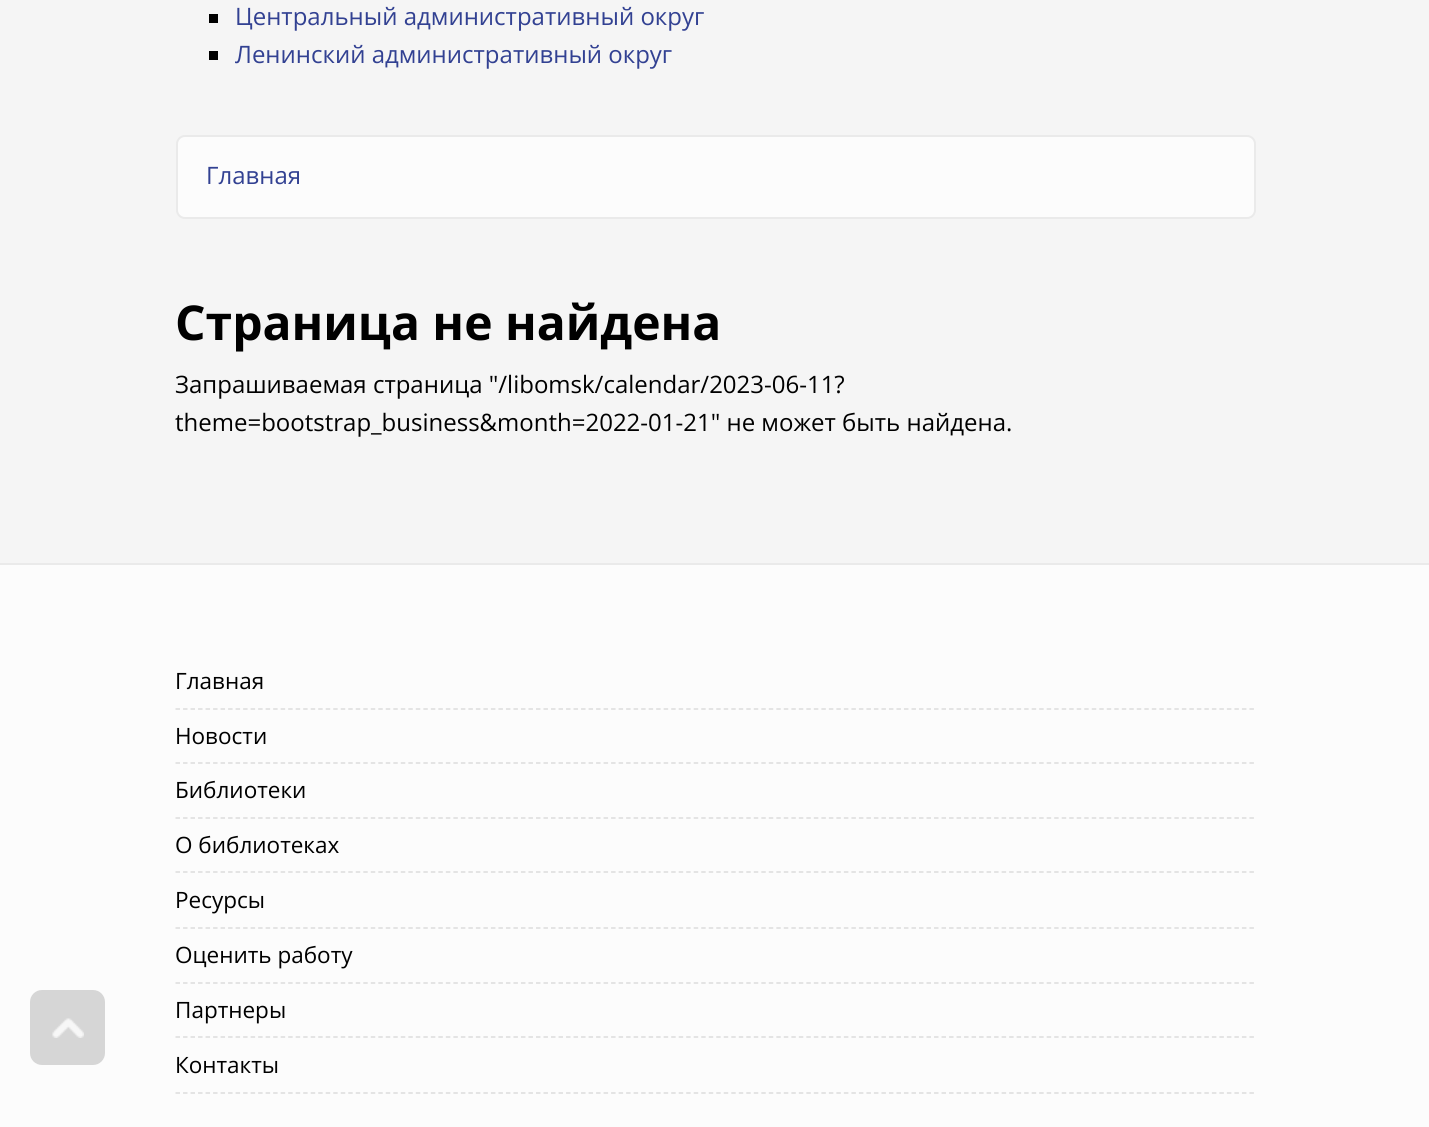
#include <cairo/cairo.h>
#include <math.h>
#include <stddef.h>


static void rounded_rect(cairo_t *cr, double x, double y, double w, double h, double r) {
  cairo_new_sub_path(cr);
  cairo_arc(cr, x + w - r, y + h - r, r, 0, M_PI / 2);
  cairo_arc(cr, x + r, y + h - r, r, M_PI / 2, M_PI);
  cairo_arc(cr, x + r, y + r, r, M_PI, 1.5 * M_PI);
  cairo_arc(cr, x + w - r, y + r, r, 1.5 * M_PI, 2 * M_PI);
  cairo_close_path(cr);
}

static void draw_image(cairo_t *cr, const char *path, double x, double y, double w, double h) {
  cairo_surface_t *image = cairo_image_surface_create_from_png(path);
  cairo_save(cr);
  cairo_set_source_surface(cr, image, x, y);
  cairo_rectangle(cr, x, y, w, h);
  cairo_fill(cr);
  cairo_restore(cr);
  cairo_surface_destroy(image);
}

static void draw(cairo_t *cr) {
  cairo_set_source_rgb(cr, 245 / 255.0, 245 / 255.0, 245 / 255.0);
  cairo_paint(cr);
  cairo_set_source_rgb(cr, 0, 0, 0);
  cairo_rectangle(cr, 209, 14, 9, 9);
  cairo_fill(cr);
  cairo_rectangle(cr, 209, 51, 9, 9);
  cairo_fill(cr);
  cairo_set_source_rgb(cr, 252 / 255.0, 252 / 255.0, 252 / 255.0);
  rounded_rect(cr, 177, 136, 1078, 82, 8);
  cairo_fill_preserve(cr);
  cairo_set_source_rgb(cr, 234 / 255.0, 234 / 255.0, 234 / 255.0);
  cairo_stroke(cr);
  cairo_set_source_rgb(cr, 252 / 255.0, 252 / 255.0, 252 / 255.0);
  cairo_rectangle(cr, 0, 565, 1429, 562);
  cairo_fill(cr);
  cairo_set_source_rgb(cr, 214 / 255.0, 214 / 255.0, 214 / 255.0);
  rounded_rect(cr, 30, 990, 75, 75, 12);
  cairo_fill(cr);
  draw_image(cr, "images/1.png", 52, 1018, 32, 20);
  cairo_set_source_rgb(cr, 234 / 255.0, 234 / 255.0, 234 / 255.0);
  cairo_rectangle(cr, 0, 563, 1429, 2);
  cairo_fill(cr);
  cairo_new_path(cr);
  cairo_move_to(cr, 175.5, 709);
  cairo_line_to(cr, 1255.5, 709);
  cairo_set_source_rgb(cr, 221 / 255.0, 221 / 255.0, 221 / 255.0);
  cairo_set_line_width(cr, 1.5);
  cairo_set_dash(cr, (double[]){4.5, 3.01}, 2, 0);
  cairo_stroke(cr);
  cairo_new_path(cr);
  cairo_move_to(cr, 175.5, 763);
  cairo_line_to(cr, 1255.5, 763);
  cairo_stroke(cr);
  cairo_new_path(cr);
  cairo_move_to(cr, 175.5, 818);
  cairo_line_to(cr, 1255.5, 818);
  cairo_stroke(cr);
  cairo_new_path(cr);
  cairo_move_to(cr, 175.5, 872);
  cairo_line_to(cr, 1255.5, 872);
  cairo_stroke(cr);
  cairo_new_path(cr);
  cairo_move_to(cr, 175.5, 928);
  cairo_line_to(cr, 1255.5, 928);
  cairo_stroke(cr);
  cairo_new_path(cr);
  cairo_move_to(cr, 175.5, 983);
  cairo_line_to(cr, 1255.5, 983);
  cairo_stroke(cr);
  cairo_new_path(cr);
  cairo_move_to(cr, 175.5, 1037);
  cairo_line_to(cr, 1255.5, 1037);
  cairo_stroke(cr);
  cairo_new_path(cr);
  cairo_move_to(cr, 175.5, 1093);
  cairo_line_to(cr, 1255.5, 1093);
  cairo_stroke(cr);
  cairo_select_font_face(cr, "Open Sans", CAIRO_FONT_SLANT_NORMAL, CAIRO_FONT_WEIGHT_NORMAL);
  cairo_set_font_size(cr, 24);
  cairo_set_source_rgb(cr, 50 / 255.0, 65 / 255.0, 146 / 255.0);
  cairo_move_to(cr, 235, 25);
  cairo_show_text(cr, "Центральный административный округ");
  cairo_move_to(cr, 235, 63);
  cairo_show_text(cr, "Ленинский административный округ");
  cairo_move_to(cr, 206, 184);
  cairo_show_text(cr, "Главная");
  cairo_select_font_face(cr, "Open Sans", CAIRO_FONT_SLANT_NORMAL, CAIRO_FONT_WEIGHT_BOLD);
  cairo_set_font_size(cr, 48);
  cairo_set_source_rgb(cr, 0, 0, 0);
  cairo_move_to(cr, 175, 340);
  cairo_show_text(cr, "Страница не найдена");
  cairo_select_font_face(cr, "Open Sans", CAIRO_FONT_SLANT_NORMAL, CAIRO_FONT_WEIGHT_NORMAL);
  cairo_set_font_size(cr, 24);
  cairo_move_to(cr, 175, 393);
  cairo_show_text(cr, "Запрашиваемая страница \"/libomsk/calendar/2023-06-11?");
  cairo_move_to(cr, 175, 431);
  cairo_show_text(cr, "theme=bootstrap_business&month=2022-01-21\" не может быть найдена.");
  cairo_set_font_size(cr, 22.5);
  cairo_move_to(cr, 175, 689);
  cairo_show_text(cr, "Главная");
  cairo_move_to(cr, 175, 744);
  cairo_show_text(cr, "Новости");
  cairo_move_to(cr, 175, 798);
  cairo_show_text(cr, "Библиотеки");
  cairo_move_to(cr, 175, 853);
  cairo_show_text(cr, "О библиотеках");
  cairo_move_to(cr, 175, 908);
  cairo_show_text(cr, "Ресурсы");
  cairo_move_to(cr, 175, 963);
  cairo_show_text(cr, "Оценить работу");
  cairo_move_to(cr, 175, 1018);
  cairo_show_text(cr, "Партнеры");
  cairo_move_to(cr, 175, 1073);
  cairo_show_text(cr, "Контакты");
}

int main(void) {
  cairo_surface_t *surface = cairo_image_surface_create(CAIRO_FORMAT_RGB24, 1429, 1127);
  cairo_t *cr = cairo_create(surface);
  cairo_font_options_t *options = cairo_font_options_create();
  cairo_font_options_set_hint_metrics(options, CAIRO_HINT_METRICS_OFF);
  cairo_font_options_set_hint_style(options, CAIRO_HINT_STYLE_NONE);
  cairo_set_font_options(cr, options);
  cairo_set_miter_limit(cr, 4);
  draw(cr);
  cairo_surface_write_to_png(surface, "out.png");
  cairo_font_options_destroy(options);
  cairo_destroy(cr);
  cairo_surface_destroy(surface);
  return 0;
}
